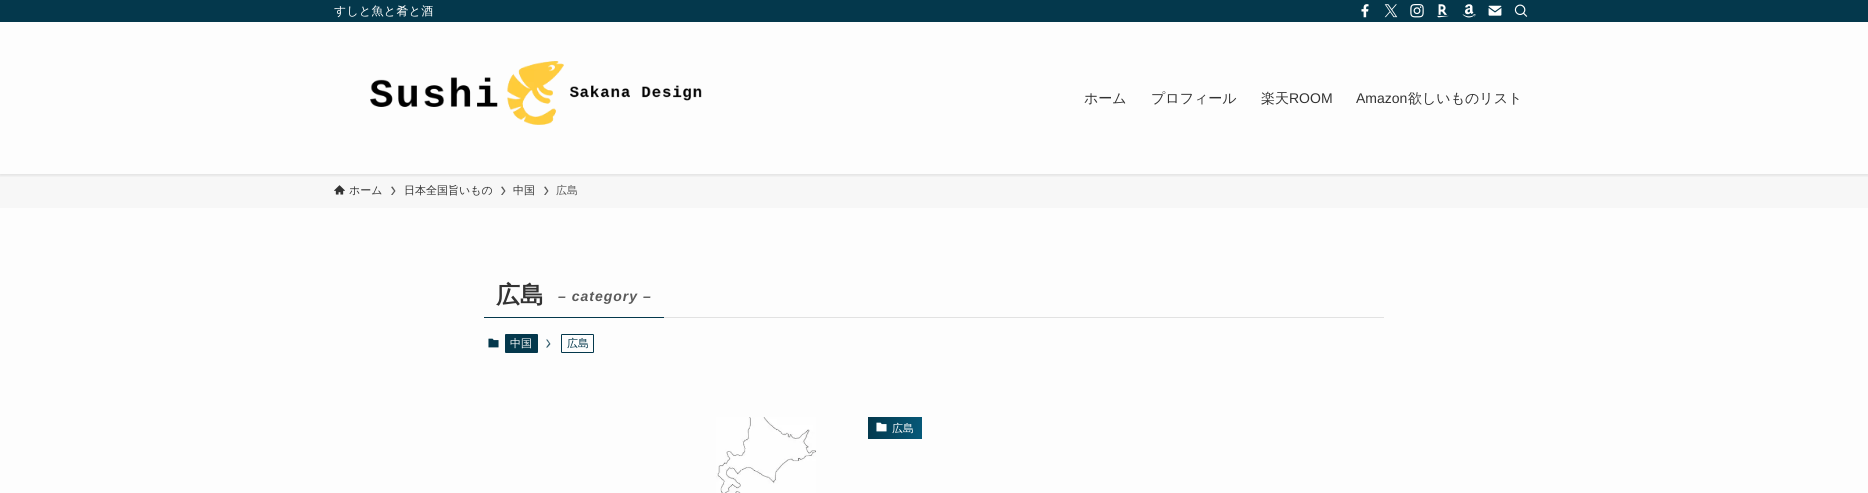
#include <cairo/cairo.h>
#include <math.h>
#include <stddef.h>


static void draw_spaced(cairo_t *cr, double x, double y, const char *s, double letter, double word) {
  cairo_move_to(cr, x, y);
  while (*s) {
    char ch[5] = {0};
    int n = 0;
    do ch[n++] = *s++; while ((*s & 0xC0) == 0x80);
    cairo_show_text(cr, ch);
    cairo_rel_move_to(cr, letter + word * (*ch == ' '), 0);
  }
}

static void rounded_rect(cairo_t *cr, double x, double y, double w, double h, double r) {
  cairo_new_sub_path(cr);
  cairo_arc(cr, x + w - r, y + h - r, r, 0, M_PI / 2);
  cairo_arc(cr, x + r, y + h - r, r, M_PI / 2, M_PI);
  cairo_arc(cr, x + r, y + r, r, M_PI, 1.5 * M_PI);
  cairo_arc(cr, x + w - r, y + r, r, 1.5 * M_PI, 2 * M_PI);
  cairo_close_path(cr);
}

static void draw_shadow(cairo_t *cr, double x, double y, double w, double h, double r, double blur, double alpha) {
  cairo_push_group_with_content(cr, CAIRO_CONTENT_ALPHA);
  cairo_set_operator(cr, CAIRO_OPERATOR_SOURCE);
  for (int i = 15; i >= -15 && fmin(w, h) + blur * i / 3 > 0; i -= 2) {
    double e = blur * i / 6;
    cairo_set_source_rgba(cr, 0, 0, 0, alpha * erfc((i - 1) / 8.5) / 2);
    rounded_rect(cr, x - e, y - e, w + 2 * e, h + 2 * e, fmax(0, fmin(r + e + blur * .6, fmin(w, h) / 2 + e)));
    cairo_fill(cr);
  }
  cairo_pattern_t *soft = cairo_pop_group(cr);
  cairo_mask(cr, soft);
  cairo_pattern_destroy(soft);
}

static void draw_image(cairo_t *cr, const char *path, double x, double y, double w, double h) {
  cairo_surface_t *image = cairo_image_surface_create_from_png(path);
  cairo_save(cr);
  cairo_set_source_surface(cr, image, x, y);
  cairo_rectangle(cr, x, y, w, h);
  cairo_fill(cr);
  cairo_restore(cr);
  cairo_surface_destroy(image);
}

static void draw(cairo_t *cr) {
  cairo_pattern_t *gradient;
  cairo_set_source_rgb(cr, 253 / 255.0, 253 / 255.0, 253 / 255.0);
  cairo_paint(cr);
  cairo_set_source_rgb(cr, 247 / 255.0, 247 / 255.0, 247 / 255.0);
  cairo_rectangle(cr, 0, 174, 1868, 34);
  cairo_fill(cr);
  cairo_save(cr);
  cairo_rectangle(cr, 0, 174, 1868, 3);
  cairo_clip(cr);
  cairo_set_source_rgb(cr, 0, 0, 0);
  draw_shadow(cr, 0, 1, 1868, 174, 0, 2, 0.12);
  cairo_restore(cr);
  cairo_set_source_rgb(cr, 4 / 255.0, 56 / 255.0, 76 / 255.0);
  cairo_rectangle(cr, 0, 0, 1868, 22);
  cairo_fill(cr);
  draw_image(cr, "images/1.png", 1361, 4, 8, 14);
  draw_image(cr, "images/2.png", 1384, 4, 14, 14);
  draw_image(cr, "images/3.png", 1410, 4, 14, 14);
  draw_image(cr, "images/4.png", 1437, 4, 12, 14);
  draw_image(cr, "images/5.png", 1462, 4, 14, 14);
  draw_image(cr, "images/6.png", 1488, 5, 14, 11);
  draw_image(cr, "images/7.png", 1514, 4, 14, 13);
  draw_image(cr, "images/8.png", 370, 61, 332, 64);
  draw_image(cr, "images/9.png", 334, 185, 11, 10);
  cairo_set_source_rgb(cr, 90 / 255.0, 90 / 255.0, 90 / 255.0);
  cairo_new_path(cr);
  cairo_move_to(cr, 392.5, 186.5);
  cairo_line_to(cr, 391, 187);
  cairo_line_to(cr, 394, 191);
  cairo_line_to(cr, 391, 195);
  cairo_line_to(cr, 392.5, 195);
  cairo_line_to(cr, 395.5, 191);
  cairo_close_path(cr);
  cairo_fill(cr);
  cairo_new_path(cr);
  cairo_move_to(cr, 502.5, 186.5);
  cairo_line_to(cr, 501, 187);
  cairo_line_to(cr, 504, 191);
  cairo_line_to(cr, 501, 195);
  cairo_line_to(cr, 502.5, 195);
  cairo_line_to(cr, 505.5, 191);
  cairo_close_path(cr);
  cairo_fill(cr);
  cairo_new_path(cr);
  cairo_move_to(cr, 545.5, 186.5);
  cairo_line_to(cr, 544, 187);
  cairo_line_to(cr, 547, 191);
  cairo_line_to(cr, 544, 195);
  cairo_line_to(cr, 545.5, 195);
  cairo_line_to(cr, 548.5, 191);
  cairo_close_path(cr);
  cairo_fill(cr);
  cairo_set_source_rgb(cr, 226 / 255.0, 226 / 255.0, 226 / 255.0);
  cairo_rectangle(cr, 664, 317, 720, 1);
  cairo_fill(cr);
  cairo_set_source_rgb(cr, 4 / 255.0, 56 / 255.0, 76 / 255.0);
  cairo_rectangle(cr, 484, 317, 180, 1);
  cairo_fill(cr);
  draw_image(cr, "images/10.png", 488, 338, 11, 10);
  rounded_rect(cr, 505, 334, 33, 19, 1);
  cairo_fill(cr);
  cairo_set_source_rgb(cr, 54 / 255.0, 95 / 255.0, 111 / 255.0);
  cairo_new_path(cr);
  cairo_move_to(cr, 547.5, 339.5);
  cairo_line_to(cr, 546, 339.5);
  cairo_line_to(cr, 549, 343.5);
  cairo_line_to(cr, 546, 347.5);
  cairo_line_to(cr, 547.5, 347.5);
  cairo_line_to(cr, 550.5, 344);
  cairo_close_path(cr);
  cairo_fill(cr);
  rounded_rect(cr, 561.5, 334.5, 32, 18, 0.5);
  cairo_set_source_rgb(cr, 4 / 255.0, 56 / 255.0, 76 / 255.0);
  cairo_set_line_width(cr, 1);
  cairo_stroke(cr);
  draw_image(cr, "images/11.png", 716, 417, 100, 76);
  gradient = cairo_pattern_create_linear(867, 423, 923, 433);
  cairo_pattern_add_color_stop_rgba(gradient, 0, 4 / 255.0, 56 / 255.0, 76 / 255.0, 1);
  cairo_pattern_add_color_stop_rgba(gradient, 1, 6 / 255.0, 90 / 255.0, 122 / 255.0, 1);
  cairo_set_source(cr, gradient);
  cairo_pattern_destroy(gradient);
  cairo_rectangle(cr, 868, 417, 54, 22);
  cairo_fill(cr);
  draw_image(cr, "images/12.png", 876, 422, 11, 10);
  cairo_select_font_face(cr, "WenQuanYi Zen Hei Medium", CAIRO_FONT_SLANT_NORMAL, CAIRO_FONT_WEIGHT_NORMAL);
  cairo_set_font_size(cr, 12);
  cairo_set_source_rgb(cr, 1, 1, 1);
  draw_spaced(cr, 334, 15, "すしと魚と肴と酒", 0.25, 0);
  cairo_set_font_size(cr, 14);
  cairo_set_source_rgb(cr, 51 / 255.0, 51 / 255.0, 51 / 255.0);
  cairo_move_to(cr, 1084, 103);
  cairo_show_text(cr, "ホーム");
  cairo_move_to(cr, 1151, 103);
  cairo_show_text(cr, "プロフィール");
  cairo_move_to(cr, 1261, 103);
  cairo_show_text(cr, "楽天");
  cairo_select_font_face(cr, "Liberation Sans", CAIRO_FONT_SLANT_NORMAL, CAIRO_FONT_WEIGHT_NORMAL);
  cairo_move_to(cr, 1289, 103);
  cairo_show_text(cr, "ROOM");
  cairo_move_to(cr, 1356, 103);
  cairo_show_text(cr, "Amazon");
  cairo_select_font_face(cr, "WenQuanYi Zen Hei Medium", CAIRO_FONT_SLANT_NORMAL, CAIRO_FONT_WEIGHT_NORMAL);
  cairo_move_to(cr, 1408, 103);
  cairo_show_text(cr, "欲しいものリスト");
  cairo_set_font_size(cr, 11);
  cairo_move_to(cr, 349, 194);
  cairo_show_text(cr, "ホーム");
  cairo_move_to(cr, 404, 194);
  cairo_show_text(cr, "日本全国旨いもの");
  cairo_move_to(cr, 513, 194);
  cairo_show_text(cr, "中国");
  cairo_set_source_rgb(cr, 90 / 255.0, 90 / 255.0, 90 / 255.0);
  cairo_move_to(cr, 556, 194);
  cairo_show_text(cr, "広島");
  cairo_select_font_face(cr, "WenQuanYi Zen Hei", CAIRO_FONT_SLANT_NORMAL, CAIRO_FONT_WEIGHT_BOLD);
  cairo_set_font_size(cr, 24);
  cairo_set_source_rgb(cr, 51 / 255.0, 51 / 255.0, 51 / 255.0);
  cairo_move_to(cr, 496, 303);
  cairo_show_text(cr, "広島");
  cairo_select_font_face(cr, "Liberation Sans", CAIRO_FONT_SLANT_ITALIC, CAIRO_FONT_WEIGHT_BOLD);
  cairo_set_font_size(cr, 14);
  cairo_set_source_rgb(cr, 90 / 255.0, 90 / 255.0, 90 / 255.0);
  draw_spaced(cr, 558, 301, "– category –", 1, 0);
  cairo_select_font_face(cr, "WenQuanYi Zen Hei Medium", CAIRO_FONT_SLANT_NORMAL, CAIRO_FONT_WEIGHT_NORMAL);
  cairo_set_font_size(cr, 11);
  cairo_set_source_rgb(cr, 1, 1, 1);
  cairo_move_to(cr, 510, 347);
  cairo_show_text(cr, "中国");
  cairo_set_source_rgb(cr, 4 / 255.0, 56 / 255.0, 76 / 255.0);
  cairo_move_to(cr, 567, 347);
  cairo_show_text(cr, "広島");
  cairo_set_source_rgb(cr, 1, 1, 1);
  cairo_move_to(cr, 892, 432);
  cairo_show_text(cr, "広島");
}

int main(void) {
  cairo_surface_t *surface = cairo_image_surface_create(CAIRO_FORMAT_RGB24, 1868, 493);
  cairo_t *cr = cairo_create(surface);
  cairo_font_options_t *options = cairo_font_options_create();
  cairo_font_options_set_hint_metrics(options, CAIRO_HINT_METRICS_OFF);
  cairo_font_options_set_hint_style(options, CAIRO_HINT_STYLE_NONE);
  cairo_set_font_options(cr, options);
  cairo_set_miter_limit(cr, 4);
  draw(cr);
  cairo_surface_write_to_png(surface, "out.png");
  cairo_font_options_destroy(options);
  cairo_destroy(cr);
  cairo_surface_destroy(surface);
  return 0;
}
